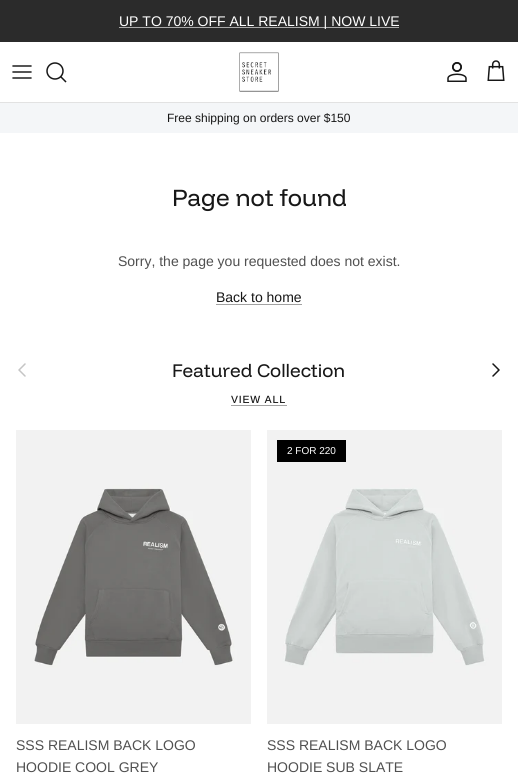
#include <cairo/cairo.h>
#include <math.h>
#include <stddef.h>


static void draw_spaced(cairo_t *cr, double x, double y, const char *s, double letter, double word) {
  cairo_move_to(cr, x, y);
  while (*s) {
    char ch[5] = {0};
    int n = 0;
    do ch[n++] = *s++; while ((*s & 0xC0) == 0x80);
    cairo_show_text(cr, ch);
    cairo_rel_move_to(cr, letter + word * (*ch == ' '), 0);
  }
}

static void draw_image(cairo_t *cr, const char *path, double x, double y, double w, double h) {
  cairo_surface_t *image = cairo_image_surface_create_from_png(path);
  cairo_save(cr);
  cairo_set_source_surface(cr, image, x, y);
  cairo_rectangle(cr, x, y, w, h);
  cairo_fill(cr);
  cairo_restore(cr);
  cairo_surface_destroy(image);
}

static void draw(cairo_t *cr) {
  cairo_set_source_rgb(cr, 1, 1, 1);
  cairo_paint(cr);
  cairo_set_source_rgb(cr, 43 / 255.0, 43 / 255.0, 43 / 255.0);
  cairo_rectangle(cr, 0, 0, 518, 42);
  cairo_fill(cr);
  cairo_set_source_rgb(cr, 170 / 255.0, 170 / 255.0, 170 / 255.0);
  cairo_rectangle(cr, 119, 27, 280, 1);
  cairo_fill(cr);
  cairo_set_source_rgb(cr, 226 / 255.0, 226 / 255.0, 226 / 255.0);
  cairo_rectangle(cr, 0, 102, 518, 1);
  cairo_fill(cr);
  cairo_new_path(cr);
  cairo_move_to(cr, 13, 72);
  cairo_line_to(cr, 31, 72);
  cairo_move_to(cr, 13, 66);
  cairo_line_to(cr, 31, 66);
  cairo_move_to(cr, 13, 78);
  cairo_line_to(cr, 31, 78);
  cairo_set_source_rgb(cr, 23 / 255.0, 23 / 255.0, 23 / 255.0);
  cairo_set_line_width(cr, 1.5);
  cairo_set_line_cap(cr, CAIRO_LINE_CAP_ROUND);
  cairo_set_line_join(cr, CAIRO_LINE_JOIN_ROUND);
  cairo_stroke(cr);
  cairo_arc(cr, 55, 71, 8, 0, 2 * M_PI);
  cairo_set_line_cap(cr, CAIRO_LINE_CAP_BUTT);
  cairo_set_line_join(cr, CAIRO_LINE_JOIN_MITER);
  cairo_stroke(cr);
  cairo_new_path(cr);
  cairo_move_to(cr, 61, 77);
  cairo_line_to(cr, 65.5, 81.5);
  cairo_set_line_cap(cr, CAIRO_LINE_CAP_SQUARE);
  cairo_stroke(cr);
  draw_image(cr, "images/1.png", 239, 52, 40, 40);
  draw_image(cr, "images/2.png", 447, 62, 20, 20);
  draw_image(cr, "images/3.png", 487, 60, 18, 21);
  cairo_set_source_rgb(cr, 244 / 255.0, 246 / 255.0, 248 / 255.0);
  cairo_rectangle(cr, 0, 103, 518, 30);
  cairo_fill(cr);
  cairo_set_source_rgb(cr, 162 / 255.0, 162 / 255.0, 162 / 255.0);
  cairo_rectangle(cr, 216, 304, 86, 1);
  cairo_fill(cr);
  cairo_new_path(cr);
  cairo_move_to(cr, 25, 376);
  cairo_line_to(cr, 19, 370);
  cairo_line_to(cr, 25, 364);
  cairo_set_source_rgb(cr, 197 / 255.0, 197 / 255.0, 197 / 255.0);
  cairo_set_line_cap(cr, CAIRO_LINE_CAP_ROUND);
  cairo_set_line_join(cr, CAIRO_LINE_JOIN_ROUND);
  cairo_stroke(cr);
  cairo_new_path(cr);
  cairo_move_to(cr, 493, 376);
  cairo_line_to(cr, 499, 370);
  cairo_line_to(cr, 493, 364);
  cairo_set_source_rgb(cr, 23 / 255.0, 23 / 255.0, 23 / 255.0);
  cairo_stroke(cr);
  cairo_set_source_rgb(cr, 162 / 255.0, 162 / 255.0, 162 / 255.0);
  cairo_rectangle(cr, 231, 405, 56, 1);
  cairo_fill(cr);
  draw_image(cr, "images/4.png", 16, 430, 235, 294);
  draw_image(cr, "images/5.png", 267, 430, 235, 294);
  cairo_set_source_rgb(cr, 0, 0, 0);
  cairo_rectangle(cr, 277, 440, 69, 22);
  cairo_fill(cr);
  cairo_select_font_face(cr, "Arimo", CAIRO_FONT_SLANT_NORMAL, CAIRO_FONT_WEIGHT_NORMAL);
  cairo_set_font_size(cr, 14);
  cairo_set_source_rgb(cr, 1, 1, 1);
  cairo_move_to(cr, 119, 26);
  cairo_show_text(cr, "UP TO 70% OFF ALL REALISM | NOW LIVE");
  cairo_set_font_size(cr, 12);
  cairo_set_source_rgb(cr, 23 / 255.0, 23 / 255.0, 23 / 255.0);
  cairo_move_to(cr, 167, 122);
  cairo_show_text(cr, "Free shipping on orders over $150");
  cairo_select_font_face(cr, "Funnel Display", CAIRO_FONT_SLANT_NORMAL, CAIRO_FONT_WEIGHT_NORMAL);
  cairo_set_font_size(cr, 24);
  cairo_move_to(cr, 172, 206);
  cairo_show_text(cr, "Page not found");
  cairo_select_font_face(cr, "Arimo", CAIRO_FONT_SLANT_NORMAL, CAIRO_FONT_WEIGHT_NORMAL);
  cairo_set_font_size(cr, 14);
  cairo_set_source_rgb(cr, 80 / 255.0, 80 / 255.0, 80 / 255.0);
  cairo_move_to(cr, 118, 266);
  cairo_show_text(cr, "Sorry, the page you requested does not exist.");
  cairo_set_source_rgb(cr, 23 / 255.0, 23 / 255.0, 23 / 255.0);
  cairo_move_to(cr, 216, 302);
  cairo_show_text(cr, "Back to home");
  cairo_select_font_face(cr, "Funnel Display", CAIRO_FONT_SLANT_NORMAL, CAIRO_FONT_WEIGHT_NORMAL);
  cairo_set_font_size(cr, 18.75);
  cairo_move_to(cr, 172, 377);
  cairo_show_text(cr, "Featured Collection");
  cairo_select_font_face(cr, "Arimo Medium", CAIRO_FONT_SLANT_NORMAL, CAIRO_FONT_WEIGHT_NORMAL);
  cairo_set_font_size(cr, 10.5);
  draw_spaced(cr, 231, 403, "VIEW ALL", 0.75, 0);
  cairo_select_font_face(cr, "Arimo", CAIRO_FONT_SLANT_NORMAL, CAIRO_FONT_WEIGHT_NORMAL);
  cairo_set_font_size(cr, 14);
  cairo_set_source_rgb(cr, 80 / 255.0, 80 / 255.0, 80 / 255.0);
  cairo_move_to(cr, 16, 750);
  cairo_show_text(cr, "SSS REALISM BACK LOGO");
  cairo_move_to(cr, 16, 772);
  cairo_show_text(cr, "HOODIE COOL GREY");
  cairo_set_font_size(cr, 10);
  cairo_set_source_rgb(cr, 1, 1, 1);
  cairo_move_to(cr, 287, 454);
  cairo_show_text(cr, "2 FOR 220");
  cairo_set_font_size(cr, 14);
  cairo_set_source_rgb(cr, 80 / 255.0, 80 / 255.0, 80 / 255.0);
  cairo_move_to(cr, 267, 750);
  cairo_show_text(cr, "SSS REALISM BACK LOGO");
  cairo_move_to(cr, 267, 772);
  cairo_show_text(cr, "HOODIE SUB SLATE");
}

int main(void) {
  cairo_surface_t *surface = cairo_image_surface_create(CAIRO_FORMAT_RGB24, 518, 782);
  cairo_t *cr = cairo_create(surface);
  cairo_font_options_t *options = cairo_font_options_create();
  cairo_font_options_set_hint_metrics(options, CAIRO_HINT_METRICS_OFF);
  cairo_font_options_set_hint_style(options, CAIRO_HINT_STYLE_NONE);
  cairo_set_font_options(cr, options);
  cairo_set_miter_limit(cr, 4);
  draw(cr);
  cairo_surface_write_to_png(surface, "out.png");
  cairo_font_options_destroy(options);
  cairo_destroy(cr);
  cairo_surface_destroy(surface);
  return 0;
}
